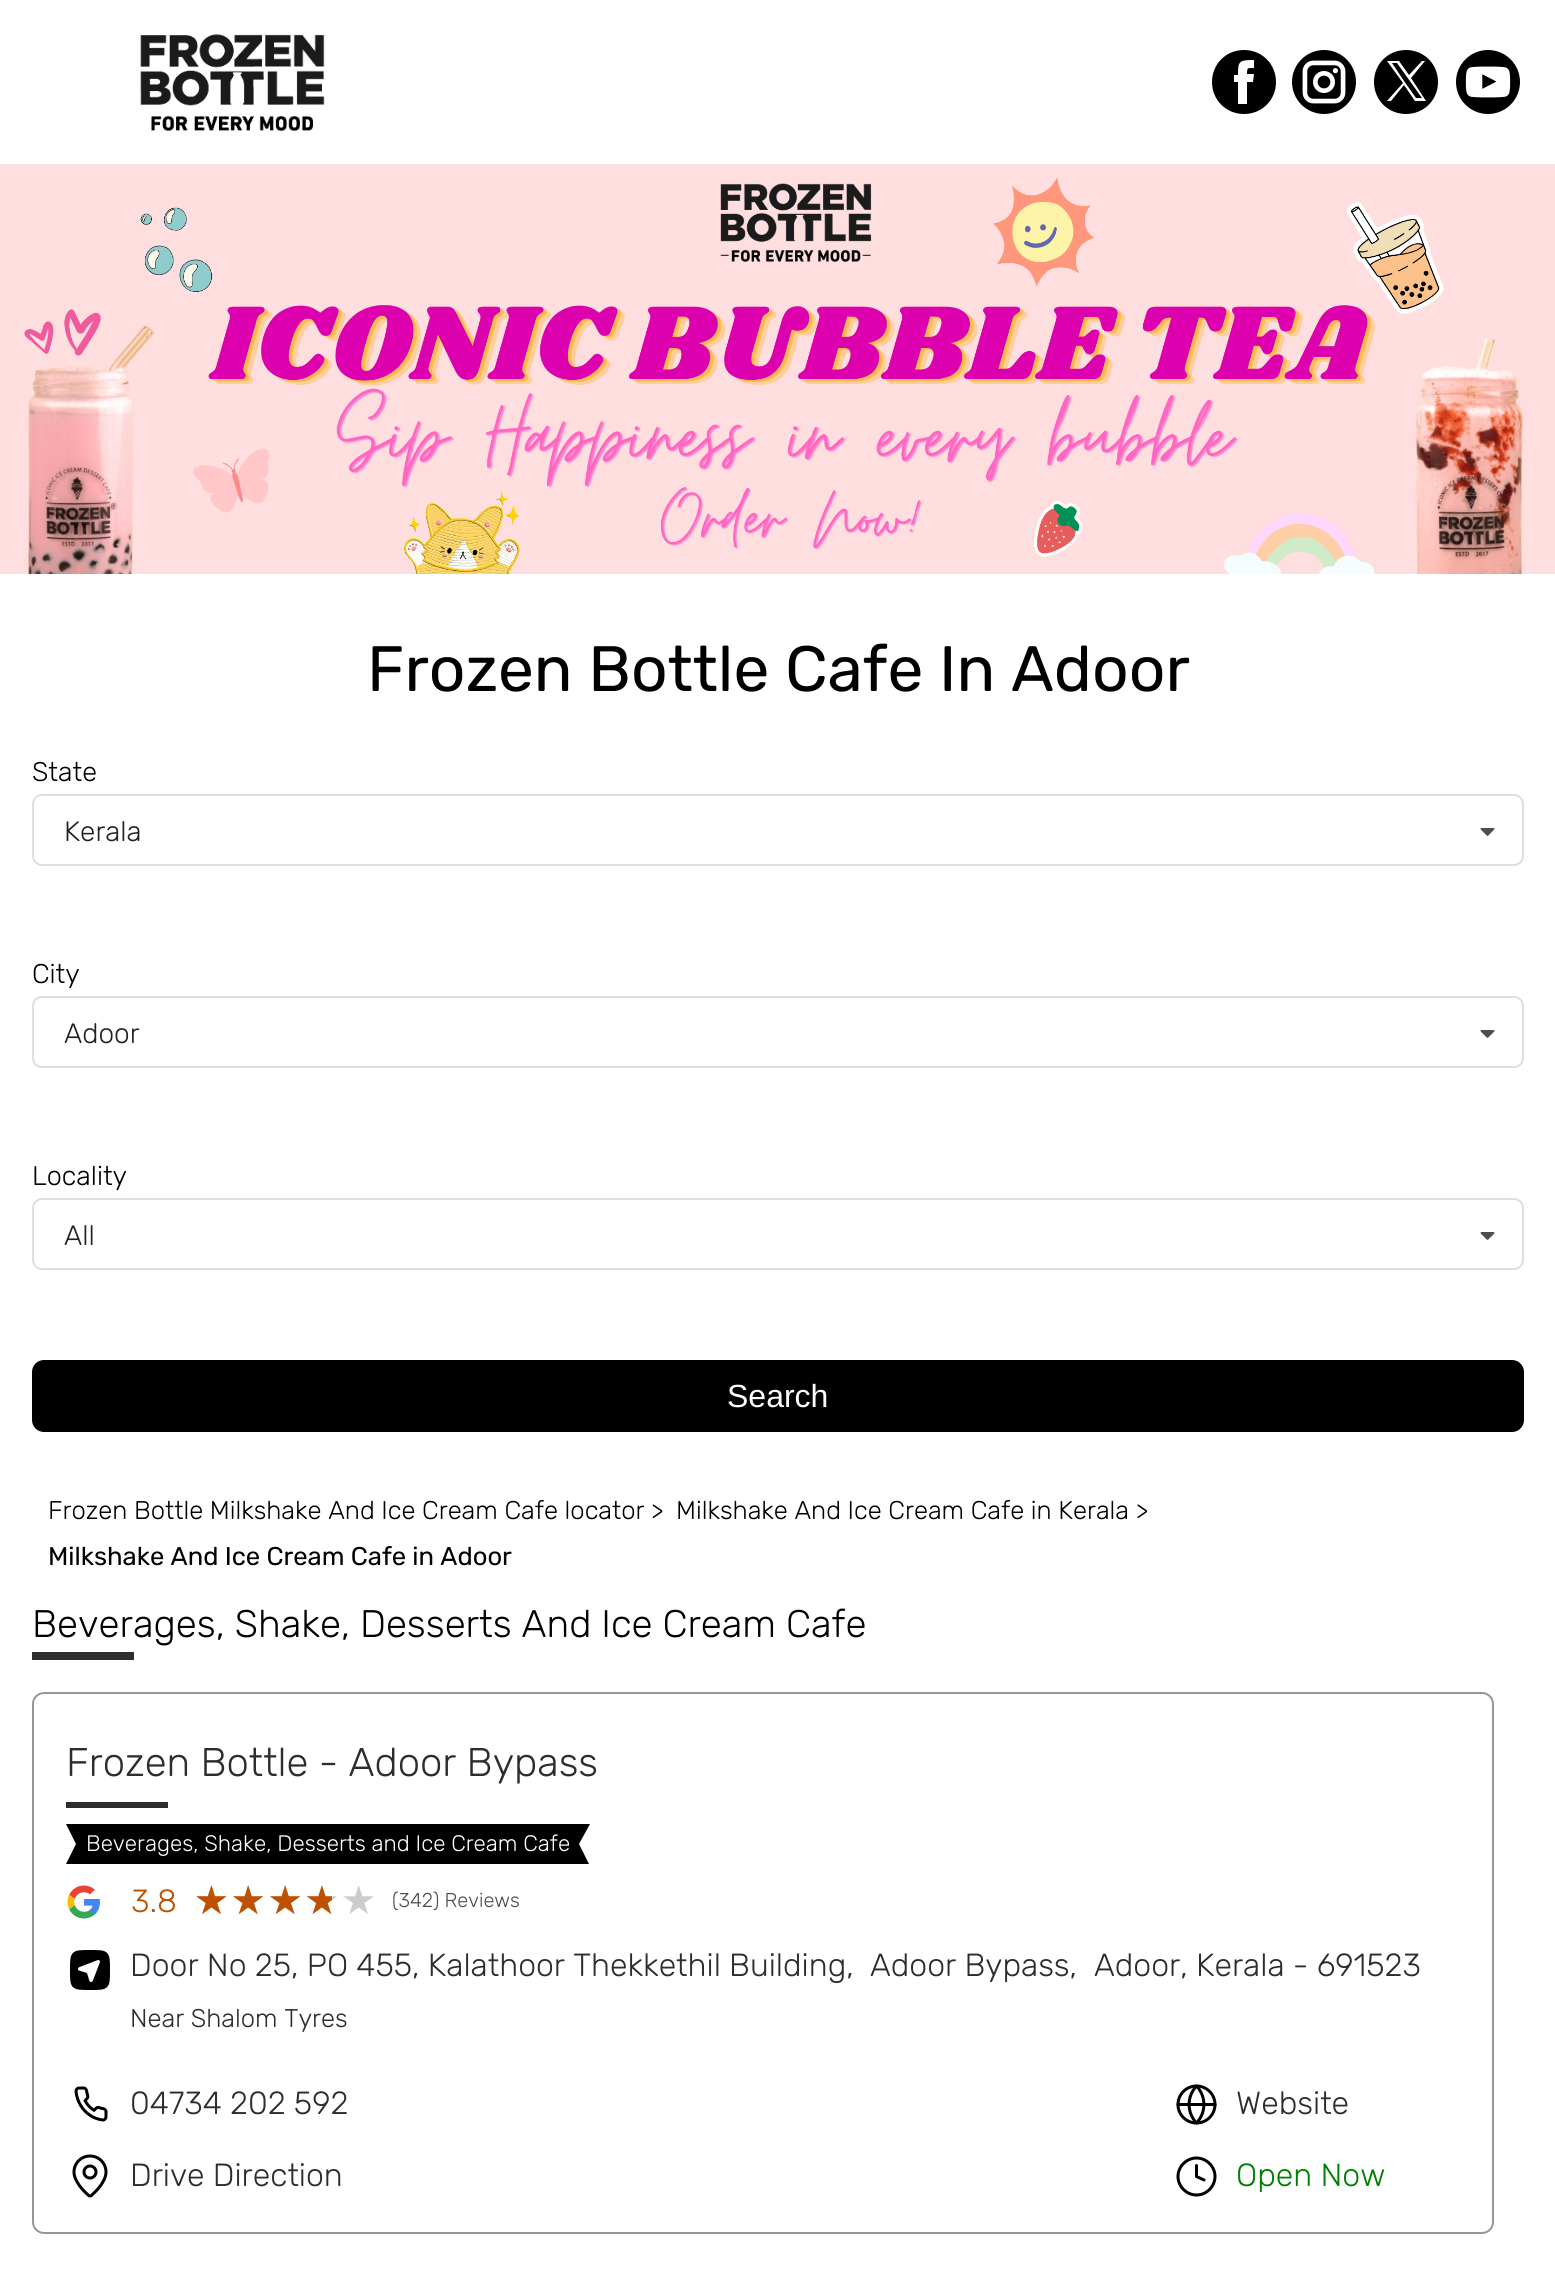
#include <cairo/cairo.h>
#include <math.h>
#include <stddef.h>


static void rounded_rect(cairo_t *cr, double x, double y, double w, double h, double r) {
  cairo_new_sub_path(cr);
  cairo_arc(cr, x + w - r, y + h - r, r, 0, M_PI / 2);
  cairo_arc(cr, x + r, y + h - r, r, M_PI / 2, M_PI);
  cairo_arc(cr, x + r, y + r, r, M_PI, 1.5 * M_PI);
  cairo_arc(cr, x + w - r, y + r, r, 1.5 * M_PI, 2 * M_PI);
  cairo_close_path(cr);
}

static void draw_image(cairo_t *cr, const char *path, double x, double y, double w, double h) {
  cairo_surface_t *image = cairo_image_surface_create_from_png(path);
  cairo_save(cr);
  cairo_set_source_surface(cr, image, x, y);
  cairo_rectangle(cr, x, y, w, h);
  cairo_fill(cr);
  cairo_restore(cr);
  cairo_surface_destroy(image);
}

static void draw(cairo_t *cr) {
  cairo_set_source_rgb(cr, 1, 1, 1);
  cairo_paint(cr);
  draw_image(cr, "images/1.png", 140, 34, 185, 98);
  cairo_set_source_rgb(cr, 0, 0, 0);
  cairo_set_fill_rule(cr, CAIRO_FILL_RULE_EVEN_ODD);
  cairo_new_path(cr);
  cairo_move_to(cr, 1244, 50);
  cairo_curve_to(cr, 1226, 50, 1212, 64, 1212, 82);
  cairo_curve_to(cr, 1212, 100, 1226, 114, 1244, 114);
  cairo_curve_to(cr, 1262, 114, 1276, 100, 1276, 82);
  cairo_curve_to(cr, 1276, 64, 1262, 50, 1244, 50);
  cairo_close_path(cr);
  cairo_move_to(cr, 1254, 68);
  cairo_line_to(cr, 1254, 60);
  cairo_curve_to(cr, 1239, 60, 1238, 61, 1238, 75);
  cairo_line_to(cr, 1234, 75);
  cairo_line_to(cr, 1234, 82);
  cairo_line_to(cr, 1238, 82);
  cairo_line_to(cr, 1238, 104);
  cairo_line_to(cr, 1247, 104);
  cairo_line_to(cr, 1247, 82);
  cairo_line_to(cr, 1253, 82);
  cairo_line_to(cr, 1254, 74);
  cairo_line_to(cr, 1247, 74);
  cairo_curve_to(cr, 1247, 67, 1248, 68, 1254, 68);
  cairo_close_path(cr);
  cairo_fill(cr);
  draw_image(cr, "images/2.png", 1292, 50, 64, 64);
  cairo_new_path(cr);
  cairo_move_to(cr, 1406, 50);
  cairo_curve_to(cr, 1388, 50, 1374, 64, 1374, 82);
  cairo_curve_to(cr, 1374, 100, 1388, 114, 1406, 114);
  cairo_curve_to(cr, 1424, 114, 1438, 100, 1438, 82);
  cairo_curve_to(cr, 1438, 64, 1424, 50, 1406, 50);
  cairo_close_path(cr);
  cairo_move_to(cr, 1425, 61);
  cairo_line_to(cr, 1422, 61);
  cairo_line_to(cr, 1409, 75);
  cairo_line_to(cr, 1399, 61);
  cairo_line_to(cr, 1387, 61);
  cairo_line_to(cr, 1403, 83);
  cairo_line_to(cr, 1387, 101);
  cairo_line_to(cr, 1391, 101);
  cairo_line_to(cr, 1404, 85);
  cairo_line_to(cr, 1415, 101);
  cairo_line_to(cr, 1426, 101);
  cairo_line_to(cr, 1411, 78);
  cairo_close_path(cr);
  cairo_move_to(cr, 1404, 81);
  cairo_line_to(cr, 1392, 63);
  cairo_line_to(cr, 1397, 63);
  cairo_line_to(cr, 1422, 98);
  cairo_line_to(cr, 1416, 98);
  cairo_close_path(cr);
  cairo_fill(cr);
  draw_image(cr, "images/3.png", 1456, 50, 64, 64);
  draw_image(cr, "images/4.png", 0, 164, 1555, 410);
  rounded_rect(cr, 33, 795, 1490, 70, 9);
  cairo_set_source_rgb(cr, 222 / 255.0, 222 / 255.0, 222 / 255.0);
  cairo_stroke(cr);
  draw_image(cr, "images/5.png", 1480, 828, 15, 8);
  rounded_rect(cr, 33, 997, 1490, 70, 9);
  cairo_stroke(cr);
  draw_image(cr, "images/5.png", 1480, 1030, 15, 8);
  rounded_rect(cr, 33, 1199, 1490, 70, 9);
  cairo_stroke(cr);
  draw_image(cr, "images/5.png", 1480, 1232, 15, 8);
  cairo_set_source_rgb(cr, 0, 0, 0);
  rounded_rect(cr, 33, 1361, 1490, 70, 11);
  cairo_fill_preserve(cr);
  cairo_stroke(cr);
  cairo_set_source_rgb(cr, 45 / 255.0, 45 / 255.0, 45 / 255.0);
  cairo_rectangle(cr, 32, 1652, 102, 8);
  cairo_fill(cr);
  rounded_rect(cr, 33, 1693, 1460, 540, 11);
  cairo_set_source_rgb(cr, 150 / 255.0, 150 / 255.0, 150 / 255.0);
  cairo_stroke(cr);
  cairo_set_source_rgb(cr, 45 / 255.0, 45 / 255.0, 45 / 255.0);
  cairo_rectangle(cr, 66, 1802, 102, 6);
  cairo_fill(cr);
  cairo_set_source_rgb(cr, 0, 0, 0);
  cairo_set_fill_rule(cr, CAIRO_FILL_RULE_WINDING);
  cairo_new_path(cr);
  cairo_move_to(cr, 590, 1824);
  cairo_line_to(cr, 579, 1844);
  cairo_line_to(cr, 589, 1864);
  cairo_line_to(cr, 66, 1864);
  cairo_line_to(cr, 76, 1844);
  cairo_line_to(cr, 66, 1824);
  cairo_close_path(cr);
  cairo_fill(cr);
  draw_image(cr, "images/6.png", 67, 1885, 33, 34);
  draw_image(cr, "images/7.png", 70, 1950, 40, 40);
  draw_image(cr, "images/8.png", 74, 2086, 34, 36);
  draw_image(cr, "images/9.png", 1176, 2084, 41, 41);
  draw_image(cr, "images/10.png", 72, 2154, 36, 44);
  cairo_new_path(cr);
  cairo_move_to(cr, 1196.5, 2195);
  cairo_curve_to(cr, 1206.5, 2195, 1215, 2186.5, 1215, 2176.5);
  cairo_curve_to(cr, 1215, 2166.5, 1206.5, 2158, 1196.5, 2158);
  cairo_curve_to(cr, 1186.5, 2158, 1178, 2166.5, 1178, 2176.5);
  cairo_curve_to(cr, 1178, 2186.5, 1186.5, 2195, 1196.5, 2195);
  cairo_close_path(cr);
  cairo_move_to(cr, 1196.5, 2165.5);
  cairo_line_to(cr, 1196.5, 2176.5);
  cairo_line_to(cr, 1204, 2180);
  cairo_set_line_width(cr, 3);
  cairo_set_line_cap(cr, CAIRO_LINE_CAP_ROUND);
  cairo_set_line_join(cr, CAIRO_LINE_JOIN_ROUND);
  cairo_stroke(cr);
  cairo_select_font_face(cr, "Rubik", CAIRO_FONT_SLANT_NORMAL, CAIRO_FONT_WEIGHT_NORMAL);
  cairo_set_font_size(cr, 64);
  cairo_move_to(cr, 367, 691);
  cairo_show_text(cr, "Frozen Bottle Cafe In Adoor");
  cairo_select_font_face(cr, "Rubik Light", CAIRO_FONT_SLANT_NORMAL, CAIRO_FONT_WEIGHT_NORMAL);
  cairo_set_font_size(cr, 27);
  cairo_move_to(cr, 32, 781);
  cairo_show_text(cr, "State");
  cairo_set_font_size(cr, 28);
  cairo_set_source_rgb(cr, 33 / 255.0, 33 / 255.0, 33 / 255.0);
  cairo_move_to(cr, 64, 841);
  cairo_show_text(cr, "Kerala");
  cairo_set_font_size(cr, 27);
  cairo_set_source_rgb(cr, 0, 0, 0);
  cairo_move_to(cr, 32, 983);
  cairo_show_text(cr, "City");
  cairo_set_font_size(cr, 28);
  cairo_set_source_rgb(cr, 33 / 255.0, 33 / 255.0, 33 / 255.0);
  cairo_move_to(cr, 64, 1043);
  cairo_show_text(cr, "Adoor");
  cairo_set_font_size(cr, 27);
  cairo_set_source_rgb(cr, 0, 0, 0);
  cairo_move_to(cr, 32, 1185);
  cairo_show_text(cr, "Locality");
  cairo_set_font_size(cr, 28);
  cairo_set_source_rgb(cr, 33 / 255.0, 33 / 255.0, 33 / 255.0);
  cairo_move_to(cr, 64, 1245);
  cairo_show_text(cr, "All");
  cairo_select_font_face(cr, "Liberation Sans", CAIRO_FONT_SLANT_NORMAL, CAIRO_FONT_WEIGHT_NORMAL);
  cairo_set_font_size(cr, 32);
  cairo_set_source_rgb(cr, 1, 1, 1);
  cairo_move_to(cr, 727, 1407);
  cairo_show_text(cr, "Search");
  cairo_select_font_face(cr, "Rubik Light", CAIRO_FONT_SLANT_NORMAL, CAIRO_FONT_WEIGHT_NORMAL);
  cairo_set_font_size(cr, 25.6);
  cairo_set_source_rgb(cr, 0, 0, 0);
  cairo_move_to(cr, 48, 1519);
  cairo_show_text(cr, "Frozen Bottle Milkshake And Ice Cream Cafe locator >");
  cairo_move_to(cr, 676, 1519);
  cairo_show_text(cr, "Milkshake And Ice Cream Cafe in Kerala >");
  cairo_select_font_face(cr, "Rubik", CAIRO_FONT_SLANT_NORMAL, CAIRO_FONT_WEIGHT_NORMAL);
  cairo_move_to(cr, 48, 1565);
  cairo_show_text(cr, "Milkshake And Ice Cream Cafe in Adoor");
  cairo_select_font_face(cr, "Rubik Light", CAIRO_FONT_SLANT_NORMAL, CAIRO_FONT_WEIGHT_NORMAL);
  cairo_set_font_size(cr, 38.4);
  cairo_move_to(cr, 32, 1637);
  cairo_show_text(cr, "Beverages, Shake, Desserts And Ice Cream Cafe");
  cairo_set_font_size(cr, 40);
  cairo_set_source_rgb(cr, 45 / 255.0, 45 / 255.0, 45 / 255.0);
  cairo_move_to(cr, 66, 1776);
  cairo_show_text(cr, "Frozen Bottle - Adoor Bypass");
  cairo_set_font_size(cr, 22.4);
  cairo_set_source_rgb(cr, 1, 1, 1);
  cairo_move_to(cr, 86, 1851);
  cairo_show_text(cr, "Beverages, Shake, Desserts and Ice Cream Cafe");
  cairo_set_font_size(cr, 32);
  cairo_set_source_rgb(cr, 191 / 255.0, 80 / 255.0, 0);
  cairo_move_to(cr, 131, 1912);
  cairo_show_text(cr, "3.8");
  cairo_select_font_face(cr, "Inter ExtraLight", CAIRO_FONT_SLANT_NORMAL, CAIRO_FONT_WEIGHT_NORMAL);
  cairo_set_font_size(cr, 35.25);
  cairo_set_source_rgb(cr, 204 / 255.0, 204 / 255.0, 204 / 255.0);
  cairo_move_to(cr, 193, 1914);
  cairo_show_text(cr, "★★★★★");
  cairo_save(cr);
  cairo_rectangle(cr, 192, 1880, 140, 42);
  cairo_clip(cr);
  cairo_set_source_rgb(cr, 191 / 255.0, 80 / 255.0, 0);
  cairo_move_to(cr, 193, 1914);
  cairo_show_text(cr, "★★★★");
  cairo_restore(cr);
  cairo_select_font_face(cr, "Rubik Light", CAIRO_FONT_SLANT_NORMAL, CAIRO_FONT_WEIGHT_NORMAL);
  cairo_set_font_size(cr, 20);
  cairo_set_source_rgb(cr, 76 / 255.0, 76 / 255.0, 76 / 255.0);
  cairo_move_to(cr, 392, 1907);
  cairo_show_text(cr, "(342) Reviews");
  cairo_set_font_size(cr, 32);
  cairo_set_source_rgb(cr, 45 / 255.0, 45 / 255.0, 45 / 255.0);
  cairo_move_to(cr, 130, 1976);
  cairo_show_text(cr, "Door No 25, PO 455, Kalathoor Thekkethil Building,");
  cairo_move_to(cr, 870, 1976);
  cairo_show_text(cr, "Adoor Bypass,");
  cairo_move_to(cr, 1094, 1976);
  cairo_show_text(cr, "Adoor, Kerala - 691523");
  cairo_set_font_size(cr, 25.6);
  cairo_move_to(cr, 130, 2027);
  cairo_show_text(cr, "Near Shalom Tyres");
  cairo_set_font_size(cr, 32);
  cairo_move_to(cr, 130, 2114);
  cairo_show_text(cr, "04734 202 592");
  cairo_move_to(cr, 1236, 2114);
  cairo_show_text(cr, "Website");
  cairo_move_to(cr, 130, 2186);
  cairo_show_text(cr, "Drive Direction");
  cairo_set_source_rgb(cr, 0, 128 / 255.0, 0);
  cairo_move_to(cr, 1236, 2186);
  cairo_show_text(cr, "Open Now");
}

int main(void) {
  cairo_surface_t *surface = cairo_image_surface_create(CAIRO_FORMAT_RGB24, 1555, 2278);
  cairo_t *cr = cairo_create(surface);
  cairo_font_options_t *options = cairo_font_options_create();
  cairo_font_options_set_hint_metrics(options, CAIRO_HINT_METRICS_OFF);
  cairo_font_options_set_hint_style(options, CAIRO_HINT_STYLE_NONE);
  cairo_set_font_options(cr, options);
  cairo_set_miter_limit(cr, 4);
  draw(cr);
  cairo_surface_write_to_png(surface, "out.png");
  cairo_font_options_destroy(options);
  cairo_destroy(cr);
  cairo_surface_destroy(surface);
  return 0;
}
